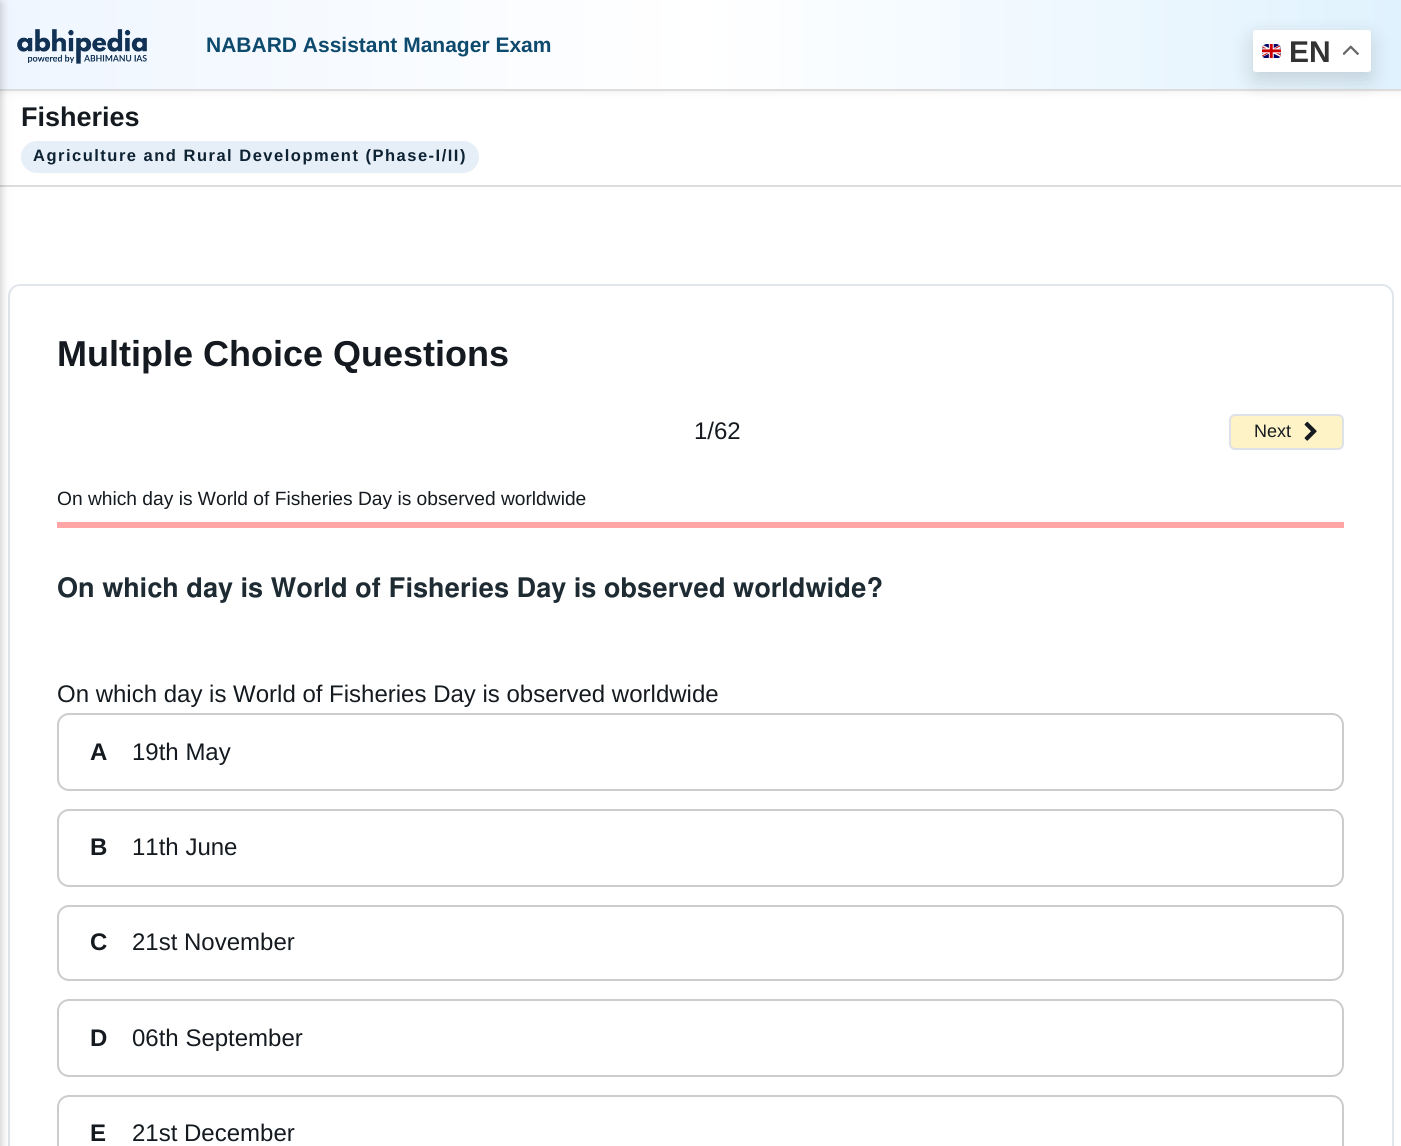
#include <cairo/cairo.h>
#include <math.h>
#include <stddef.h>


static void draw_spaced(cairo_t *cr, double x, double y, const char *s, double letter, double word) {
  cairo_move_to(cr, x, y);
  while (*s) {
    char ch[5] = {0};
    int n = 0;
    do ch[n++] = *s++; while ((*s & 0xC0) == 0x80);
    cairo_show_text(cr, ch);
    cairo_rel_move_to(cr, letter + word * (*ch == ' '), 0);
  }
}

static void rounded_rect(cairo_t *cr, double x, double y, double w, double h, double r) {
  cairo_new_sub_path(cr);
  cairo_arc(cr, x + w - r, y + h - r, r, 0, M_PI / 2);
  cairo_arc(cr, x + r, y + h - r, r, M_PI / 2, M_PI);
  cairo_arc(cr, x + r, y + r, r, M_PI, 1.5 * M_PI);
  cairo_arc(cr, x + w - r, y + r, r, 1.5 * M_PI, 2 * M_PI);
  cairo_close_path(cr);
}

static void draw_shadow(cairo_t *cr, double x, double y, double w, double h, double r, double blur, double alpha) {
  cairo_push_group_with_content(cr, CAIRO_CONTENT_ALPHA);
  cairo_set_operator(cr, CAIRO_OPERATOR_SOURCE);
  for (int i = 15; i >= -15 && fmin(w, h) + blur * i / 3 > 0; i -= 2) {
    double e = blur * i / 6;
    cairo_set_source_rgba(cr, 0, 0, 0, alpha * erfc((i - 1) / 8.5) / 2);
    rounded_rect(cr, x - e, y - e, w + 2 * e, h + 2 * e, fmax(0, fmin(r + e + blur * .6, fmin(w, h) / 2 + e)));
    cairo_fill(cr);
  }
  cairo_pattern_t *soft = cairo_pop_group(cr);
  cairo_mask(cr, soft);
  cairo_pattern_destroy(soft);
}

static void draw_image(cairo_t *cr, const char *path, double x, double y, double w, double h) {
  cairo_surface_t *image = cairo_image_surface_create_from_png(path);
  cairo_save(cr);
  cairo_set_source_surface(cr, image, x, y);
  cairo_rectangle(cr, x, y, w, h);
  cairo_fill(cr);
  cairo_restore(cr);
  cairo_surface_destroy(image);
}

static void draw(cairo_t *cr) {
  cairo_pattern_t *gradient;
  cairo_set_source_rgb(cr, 1, 1, 1);
  cairo_paint(cr);
  cairo_set_source_rgb(cr, 0, 0, 0);
  draw_shadow(cr, 0, 3, 1401, 90, 0, 3, 0.05);
  gradient = cairo_pattern_create_linear(0, 44, 1401, 44);
  cairo_pattern_add_color_stop_rgba(gradient, 0, 239 / 255.0, 246 / 255.0, 1, 1);
  cairo_pattern_add_color_stop_rgba(gradient, 0.5, 1, 1, 1, 1);
  cairo_pattern_add_color_stop_rgba(gradient, 1, 224 / 255.0, 242 / 255.0, 254 / 255.0, 1);
  cairo_set_source(cr, gradient);
  cairo_pattern_destroy(gradient);
  cairo_rectangle(cr, 0, 0, 1401, 89);
  cairo_fill(cr);
  cairo_set_source_rgb(cr, 221 / 255.0, 221 / 255.0, 221 / 255.0);
  cairo_rectangle(cr, 0, 89, 1401, 2);
  cairo_fill(cr);
  draw_image(cr, "images/1.png", 17, 29, 130, 35);
  cairo_rectangle(cr, 0, 185, 1401, 2);
  cairo_fill(cr);
  cairo_set_source_rgb(cr, 230 / 255.0, 238 / 255.0, 247 / 255.0);
  rounded_rect(cr, 21, 141, 458, 32, 16);
  cairo_fill(cr);
  rounded_rect(cr, 9, 285, 1384, 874, 11);
  cairo_set_source_rgb(cr, 224 / 255.0, 230 / 255.0, 235 / 255.0);
  cairo_stroke(cr);
  cairo_set_source_rgb(cr, 0, 0, 0);
  draw_shadow(cr, -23, 3, 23, 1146, 0, 7.5, 0.12);
  draw_shadow(cr, -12, 3, 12, 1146, 0, 4, 0.16);
  cairo_set_source_rgb(cr, 254 / 255.0, 243 / 255.0, 199 / 255.0);
  rounded_rect(cr, 1230, 415, 113, 34, 5);
  cairo_fill_preserve(cr);
  cairo_set_source_rgb(cr, 222 / 255.0, 226 / 255.0, 230 / 255.0);
  cairo_stroke(cr);
  draw_image(cr, "images/2.png", 1304, 421, 13, 20);
  cairo_set_source_rgb(cr, 1, 165 / 255.0, 165 / 255.0);
  cairo_rectangle(cr, 57, 522, 1287, 6);
  cairo_fill(cr);
  rounded_rect(cr, 58, 714, 1285, 76, 11);
  cairo_set_source_rgb(cr, 204 / 255.0, 204 / 255.0, 204 / 255.0);
  cairo_stroke(cr);
  rounded_rect(cr, 58, 810, 1285, 76, 11);
  cairo_stroke(cr);
  rounded_rect(cr, 58, 906, 1285, 74, 11);
  cairo_stroke(cr);
  rounded_rect(cr, 58, 1000, 1285, 76, 11);
  cairo_stroke(cr);
  rounded_rect(cr, 58, 1096, 1285, 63, 11);
  cairo_stroke(cr);
  cairo_set_source_rgb(cr, 0, 0, 0);
  draw_shadow(cr, 1253, 38, 118, 42, 3, 11, 0.15);
  cairo_set_source_rgb(cr, 1, 1, 1);
  rounded_rect(cr, 1253, 30, 118, 42, 3);
  cairo_fill(cr);
  draw_image(cr, "images/3.png", 1262, 44, 19, 15);
  draw_image(cr, "images/4.png", 1343, 45, 16, 10);
  cairo_select_font_face(cr, "Liberation Sans", CAIRO_FONT_SLANT_NORMAL, CAIRO_FONT_WEIGHT_BOLD);
  cairo_set_font_size(cr, 21);
  cairo_set_source_rgb(cr, 13 / 255.0, 74 / 255.0, 109 / 255.0);
  cairo_move_to(cr, 206, 52);
  cairo_show_text(cr, "NABARD Assistant Manager Exam");
  cairo_set_font_size(cr, 27);
  cairo_set_source_rgb(cr, 20 / 255.0, 26 / 255.0, 31 / 255.0);
  cairo_move_to(cr, 21, 126);
  cairo_show_text(cr, "Fisheries");
  cairo_set_font_size(cr, 16.5);
  cairo_set_source_rgb(cr, 13 / 255.0, 34 / 255.0, 51 / 255.0);
  draw_spaced(cr, 33, 161, "Agriculture and Rural Development (Phase-I/II)", 1.5, 0);
  cairo_set_font_size(cr, 36);
  cairo_set_source_rgb(cr, 20 / 255.0, 26 / 255.0, 31 / 255.0);
  cairo_move_to(cr, 57, 366);
  cairo_show_text(cr, "Multiple Choice Questions");
  cairo_select_font_face(cr, "Liberation Sans", CAIRO_FONT_SLANT_NORMAL, CAIRO_FONT_WEIGHT_NORMAL);
  cairo_set_font_size(cr, 24);
  cairo_move_to(cr, 694, 439);
  cairo_show_text(cr, "1/62");
  cairo_set_font_size(cr, 18);
  cairo_move_to(cr, 1254, 437);
  cairo_show_text(cr, "Next");
  cairo_set_font_size(cr, 19.2);
  cairo_move_to(cr, 57, 505);
  cairo_show_text(cr, "On which day is World of Fisheries Day is observed worldwide");
  cairo_select_font_face(cr, "FreeSans SemiBold", CAIRO_FONT_SLANT_NORMAL, CAIRO_FONT_WEIGHT_NORMAL);
  cairo_set_font_size(cr, 27);
  cairo_set_source_rgb(cr, 30 / 255.0, 43 / 255.0, 51 / 255.0);
  cairo_move_to(cr, 57, 597);
  cairo_show_text(cr, "On which day is World of Fisheries Day is observed worldwide?");
  cairo_select_font_face(cr, "Liberation Sans", CAIRO_FONT_SLANT_NORMAL, CAIRO_FONT_WEIGHT_NORMAL);
  cairo_set_font_size(cr, 24);
  cairo_set_source_rgb(cr, 20 / 255.0, 26 / 255.0, 31 / 255.0);
  cairo_move_to(cr, 57, 702);
  cairo_show_text(cr, "On which day is World of Fisheries Day is observed worldwide");
  cairo_select_font_face(cr, "Liberation Sans", CAIRO_FONT_SLANT_NORMAL, CAIRO_FONT_WEIGHT_BOLD);
  cairo_move_to(cr, 90, 760);
  cairo_show_text(cr, "A");
  cairo_select_font_face(cr, "Liberation Sans", CAIRO_FONT_SLANT_NORMAL, CAIRO_FONT_WEIGHT_NORMAL);
  cairo_move_to(cr, 132, 760);
  cairo_show_text(cr, "19th May");
  cairo_select_font_face(cr, "Liberation Sans", CAIRO_FONT_SLANT_NORMAL, CAIRO_FONT_WEIGHT_BOLD);
  cairo_move_to(cr, 90, 855);
  cairo_show_text(cr, "B");
  cairo_select_font_face(cr, "Liberation Sans", CAIRO_FONT_SLANT_NORMAL, CAIRO_FONT_WEIGHT_NORMAL);
  cairo_move_to(cr, 132, 855);
  cairo_show_text(cr, "11th June");
  cairo_select_font_face(cr, "Liberation Sans", CAIRO_FONT_SLANT_NORMAL, CAIRO_FONT_WEIGHT_BOLD);
  cairo_move_to(cr, 90, 950);
  cairo_show_text(cr, "C");
  cairo_select_font_face(cr, "Liberation Sans", CAIRO_FONT_SLANT_NORMAL, CAIRO_FONT_WEIGHT_NORMAL);
  cairo_move_to(cr, 132, 950);
  cairo_show_text(cr, "21st November");
  cairo_select_font_face(cr, "Liberation Sans", CAIRO_FONT_SLANT_NORMAL, CAIRO_FONT_WEIGHT_BOLD);
  cairo_move_to(cr, 90, 1046);
  cairo_show_text(cr, "D");
  cairo_select_font_face(cr, "Liberation Sans", CAIRO_FONT_SLANT_NORMAL, CAIRO_FONT_WEIGHT_NORMAL);
  cairo_move_to(cr, 132, 1046);
  cairo_show_text(cr, "06th September");
  cairo_select_font_face(cr, "Liberation Sans", CAIRO_FONT_SLANT_NORMAL, CAIRO_FONT_WEIGHT_BOLD);
  cairo_move_to(cr, 90, 1141);
  cairo_show_text(cr, "E");
  cairo_select_font_face(cr, "Liberation Sans", CAIRO_FONT_SLANT_NORMAL, CAIRO_FONT_WEIGHT_NORMAL);
  cairo_move_to(cr, 132, 1141);
  cairo_show_text(cr, "21st December");
  cairo_select_font_face(cr, "Liberation Sans", CAIRO_FONT_SLANT_NORMAL, CAIRO_FONT_WEIGHT_BOLD);
  cairo_set_font_size(cr, 30);
  cairo_set_source_rgb(cr, 51 / 255.0, 51 / 255.0, 51 / 255.0);
  cairo_move_to(cr, 1289, 62);
  cairo_show_text(cr, "EN");
}

int main(void) {
  cairo_surface_t *surface = cairo_image_surface_create(CAIRO_FORMAT_RGB24, 1401, 1146);
  cairo_t *cr = cairo_create(surface);
  cairo_font_options_t *options = cairo_font_options_create();
  cairo_font_options_set_hint_metrics(options, CAIRO_HINT_METRICS_OFF);
  cairo_font_options_set_hint_style(options, CAIRO_HINT_STYLE_NONE);
  cairo_set_font_options(cr, options);
  cairo_set_miter_limit(cr, 4);
  draw(cr);
  cairo_surface_write_to_png(surface, "out.png");
  cairo_font_options_destroy(options);
  cairo_destroy(cr);
  cairo_surface_destroy(surface);
  return 0;
}
